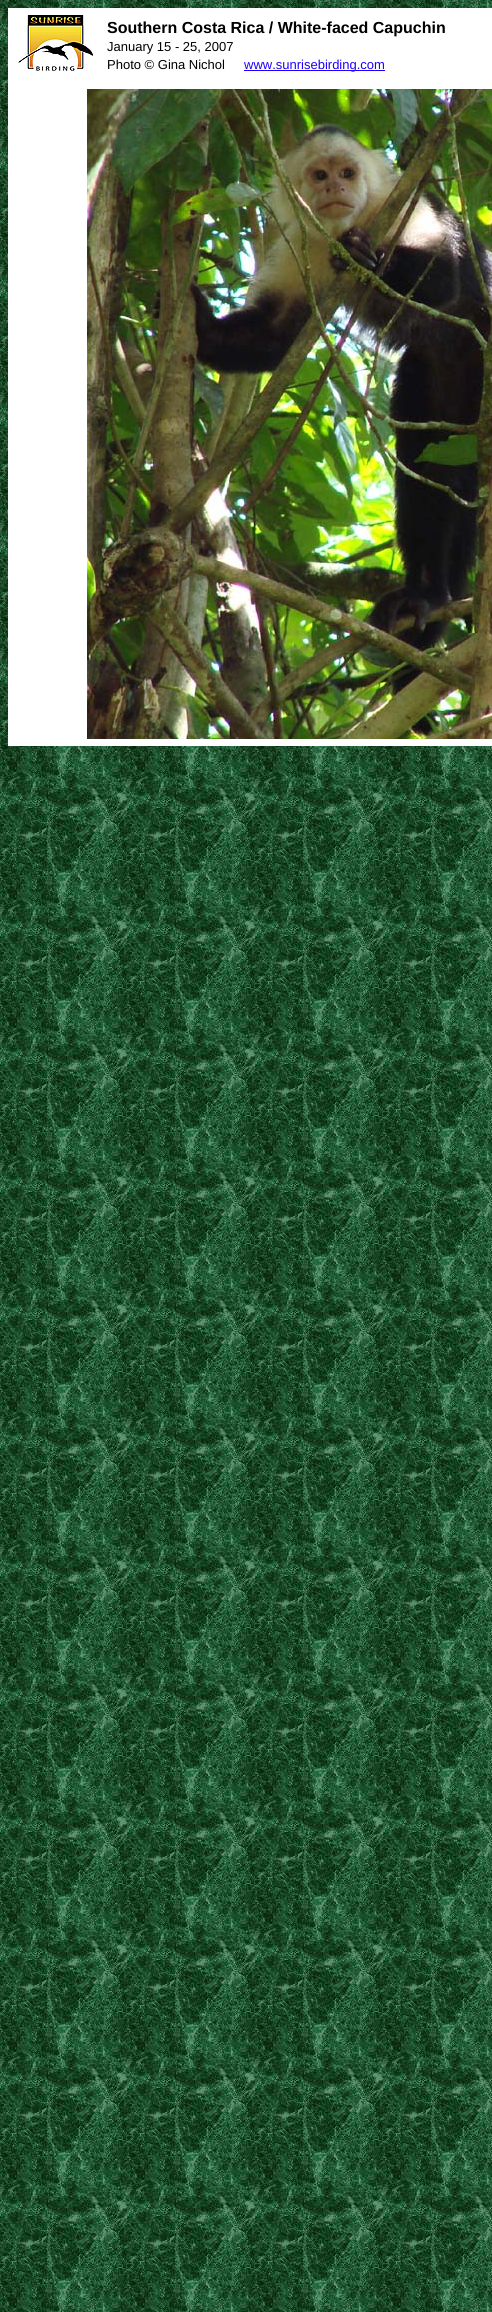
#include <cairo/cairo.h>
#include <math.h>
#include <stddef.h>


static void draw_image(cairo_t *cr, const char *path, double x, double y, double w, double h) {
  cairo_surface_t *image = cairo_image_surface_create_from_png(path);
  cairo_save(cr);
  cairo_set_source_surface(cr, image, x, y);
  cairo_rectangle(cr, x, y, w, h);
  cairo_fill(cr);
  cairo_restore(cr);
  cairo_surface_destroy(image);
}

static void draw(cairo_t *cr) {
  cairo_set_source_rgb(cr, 1, 1, 1);
  cairo_paint(cr);
  draw_image(cr, "images/1.png", 0, 0, 492, 2312);
  cairo_set_source_rgb(cr, 1, 1, 1);
  cairo_rectangle(cr, 8, 8, 484, 738);
  cairo_fill(cr);
  draw_image(cr, "images/2.png", 18, 15, 75, 56);
  cairo_set_source_rgb(cr, 30 / 255.0, 0, 1);
  cairo_rectangle(cr, 244, 70, 141, 1);
  cairo_fill(cr);
  draw_image(cr, "images/3.png", 87, 89, 405, 650);
  cairo_select_font_face(cr, "Liberation Sans", CAIRO_FONT_SLANT_NORMAL, CAIRO_FONT_WEIGHT_BOLD);
  cairo_set_font_size(cr, 16);
  cairo_set_source_rgb(cr, 0, 0, 0);
  cairo_move_to(cr, 107, 33);
  cairo_show_text(cr, "Southern Costa Rica / White-faced Capuchin");
  cairo_select_font_face(cr, "Liberation Sans", CAIRO_FONT_SLANT_NORMAL, CAIRO_FONT_WEIGHT_NORMAL);
  cairo_set_font_size(cr, 13);
  cairo_move_to(cr, 107, 51);
  cairo_show_text(cr, "January 15 - 25, 2007");
  cairo_move_to(cr, 107, 69);
  cairo_show_text(cr, "Photo © Gina Nichol");
  cairo_set_source_rgb(cr, 30 / 255.0, 0, 1);
  cairo_move_to(cr, 244, 69);
  cairo_show_text(cr, "www.sunrisebirding.com");
}

int main(void) {
  cairo_surface_t *surface = cairo_image_surface_create(CAIRO_FORMAT_RGB24, 492, 2312);
  cairo_t *cr = cairo_create(surface);
  cairo_font_options_t *options = cairo_font_options_create();
  cairo_font_options_set_hint_metrics(options, CAIRO_HINT_METRICS_OFF);
  cairo_font_options_set_hint_style(options, CAIRO_HINT_STYLE_NONE);
  cairo_set_font_options(cr, options);
  cairo_set_miter_limit(cr, 4);
  draw(cr);
  cairo_surface_write_to_png(surface, "out.png");
  cairo_font_options_destroy(options);
  cairo_destroy(cr);
  cairo_surface_destroy(surface);
  return 0;
}
